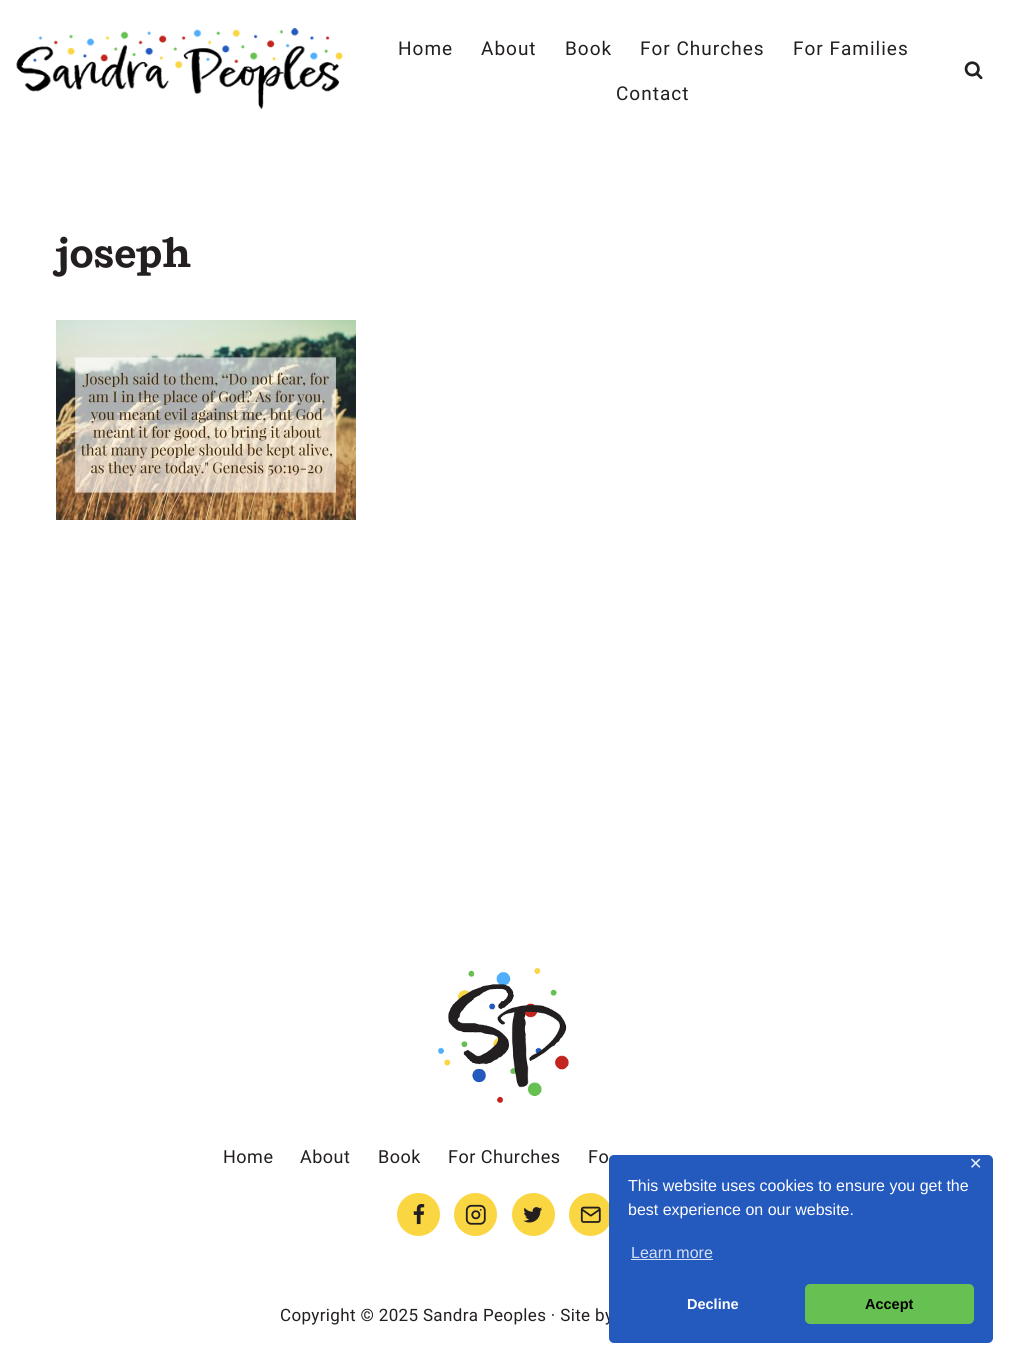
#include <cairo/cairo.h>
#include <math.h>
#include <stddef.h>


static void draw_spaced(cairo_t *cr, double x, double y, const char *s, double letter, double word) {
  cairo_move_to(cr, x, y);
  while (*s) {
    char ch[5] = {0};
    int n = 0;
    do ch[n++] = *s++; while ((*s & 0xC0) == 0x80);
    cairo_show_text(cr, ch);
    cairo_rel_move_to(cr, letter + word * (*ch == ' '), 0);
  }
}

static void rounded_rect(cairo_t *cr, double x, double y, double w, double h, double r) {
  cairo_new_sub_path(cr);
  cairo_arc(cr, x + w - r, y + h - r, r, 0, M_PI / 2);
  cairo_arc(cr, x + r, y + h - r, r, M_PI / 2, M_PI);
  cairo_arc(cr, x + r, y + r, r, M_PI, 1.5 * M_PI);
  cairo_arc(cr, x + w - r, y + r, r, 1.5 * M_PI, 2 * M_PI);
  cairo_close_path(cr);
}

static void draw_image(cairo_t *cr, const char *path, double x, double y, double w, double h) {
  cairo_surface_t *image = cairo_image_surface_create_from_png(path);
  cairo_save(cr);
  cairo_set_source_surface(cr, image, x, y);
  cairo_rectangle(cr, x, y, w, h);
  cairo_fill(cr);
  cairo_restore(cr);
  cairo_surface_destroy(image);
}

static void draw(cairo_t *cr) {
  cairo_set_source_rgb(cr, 1, 1, 1);
  cairo_paint(cr);
  draw_image(cr, "images/1.png", 16, 28, 327, 81);
  draw_image(cr, "images/2.png", 964, 61, 19, 19);
  draw_image(cr, "images/3.png", 56, 320, 300, 200);
  draw_image(cr, "images/4.png", 438, 968, 131, 135);
  cairo_set_source_rgb(cr, 251 / 255.0, 214 / 255.0, 67 / 255.0);
  cairo_arc(cr, 418.5, 1214.5, 21.5, 0, 2 * M_PI);
  cairo_fill(cr);
  draw_image(cr, "images/5.png", 413, 1204, 12, 21);
  cairo_arc(cr, 475.5, 1214.5, 21.5, 0, 2 * M_PI);
  cairo_fill(cr);
  draw_image(cr, "images/6.png", 465, 1204, 21, 21);
  cairo_arc(cr, 533.5, 1214.5, 21.5, 0, 2 * M_PI);
  cairo_fill(cr);
  draw_image(cr, "images/7.png", 523, 1207, 20, 16);
  cairo_arc(cr, 590.5, 1214.5, 21.5, 0, 2 * M_PI);
  cairo_fill(cr);
  draw_image(cr, "images/8.png", 580, 1206, 21, 17);
  cairo_select_font_face(cr, "Roboto", CAIRO_FONT_SLANT_NORMAL, CAIRO_FONT_WEIGHT_NORMAL);
  cairo_set_font_size(cr, 19);
  cairo_set_source_rgb(cr, 35 / 255.0, 31 / 255.0, 32 / 255.0);
  draw_spaced(cr, 398, 55, "Home", 1, 0);
  draw_spaced(cr, 481, 55, "About", 1, 0);
  draw_spaced(cr, 565, 55, "Book", 1, 0);
  draw_spaced(cr, 640, 55, "For Churches", 1, 0);
  draw_spaced(cr, 793, 55, "For Families", 1, 0);
  draw_spaced(cr, 616, 100, "Contact", 1, 0);
  cairo_select_font_face(cr, "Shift", CAIRO_FONT_SLANT_NORMAL, CAIRO_FONT_WEIGHT_BOLD);
  cairo_set_font_size(cr, 40);
  cairo_move_to(cr, 56, 267);
  cairo_show_text(cr, "joseph");
  cairo_select_font_face(cr, "Roboto", CAIRO_FONT_SLANT_NORMAL, CAIRO_FONT_WEIGHT_NORMAL);
  cairo_set_font_size(cr, 18);
  draw_spaced(cr, 223, 1163, "Home", 0.5, 0);
  draw_spaced(cr, 300, 1163, "About", 0.5, 0);
  draw_spaced(cr, 378, 1163, "Book", 0.5, 0);
  draw_spaced(cr, 448, 1163, "For Churches", 0.5, 0);
  draw_spaced(cr, 588, 1163, "Fo", 0.5, 0);
  cairo_set_font_size(cr, 17);
  draw_spaced(cr, 280, 1321, "Copyright © 2025 Sandra Peoples · Site by", 0.35, 0);
  cairo_set_source_rgb(cr, 36 / 255.0, 89 / 255.0, 190 / 255.0);
  rounded_rect(cr, 609, 1155, 384, 188, 5);
  cairo_fill(cr);
  cairo_select_font_face(cr, "DejaVu Sans", CAIRO_FONT_SLANT_NORMAL, CAIRO_FONT_WEIGHT_NORMAL);
  cairo_set_font_size(cr, 16);
  cairo_set_source_rgb(cr, 233 / 255.0, 238 / 255.0, 249 / 255.0);
  cairo_move_to(cr, 969, 1169);
  cairo_show_text(cr, "✕");
  cairo_select_font_face(cr, "Liberation Sans", CAIRO_FONT_SLANT_NORMAL, CAIRO_FONT_WEIGHT_NORMAL);
  cairo_set_source_rgb(cr, 1, 1, 1);
  cairo_move_to(cr, 628, 1191);
  cairo_show_text(cr, "This website uses cookies to ensure you get the");
  cairo_move_to(cr, 628, 1215);
  cairo_show_text(cr, "best experience on our website.");
  cairo_set_source_rgb(cr, 211 / 255.0, 222 / 255.0, 242 / 255.0);
  cairo_move_to(cr, 631, 1258);
  cairo_show_text(cr, "Learn more");
  cairo_rectangle(cr, 631, 1259, 82, 1);
  cairo_fill(cr);
  cairo_select_font_face(cr, "Liberation Sans", CAIRO_FONT_SLANT_NORMAL, CAIRO_FONT_WEIGHT_BOLD);
  cairo_set_font_size(cr, 14.5);
  cairo_set_source_rgb(cr, 1, 1, 1);
  cairo_move_to(cr, 687, 1309);
  cairo_show_text(cr, "Decline");
  cairo_set_source_rgb(cr, 103 / 255.0, 192 / 255.0, 82 / 255.0);
  rounded_rect(cr, 806, 1285, 167, 38, 4);
  cairo_fill_preserve(cr);
  cairo_stroke(cr);
  cairo_set_source_rgb(cr, 0, 0, 0);
  cairo_move_to(cr, 865, 1309);
  cairo_show_text(cr, "Accept");
}

int main(void) {
  cairo_surface_t *surface = cairo_image_surface_create(CAIRO_FORMAT_RGB24, 1009, 1359);
  cairo_t *cr = cairo_create(surface);
  cairo_font_options_t *options = cairo_font_options_create();
  cairo_font_options_set_hint_metrics(options, CAIRO_HINT_METRICS_OFF);
  cairo_font_options_set_hint_style(options, CAIRO_HINT_STYLE_NONE);
  cairo_set_font_options(cr, options);
  cairo_set_miter_limit(cr, 4);
  draw(cr);
  cairo_surface_write_to_png(surface, "out.png");
  cairo_font_options_destroy(options);
  cairo_destroy(cr);
  cairo_surface_destroy(surface);
  return 0;
}
